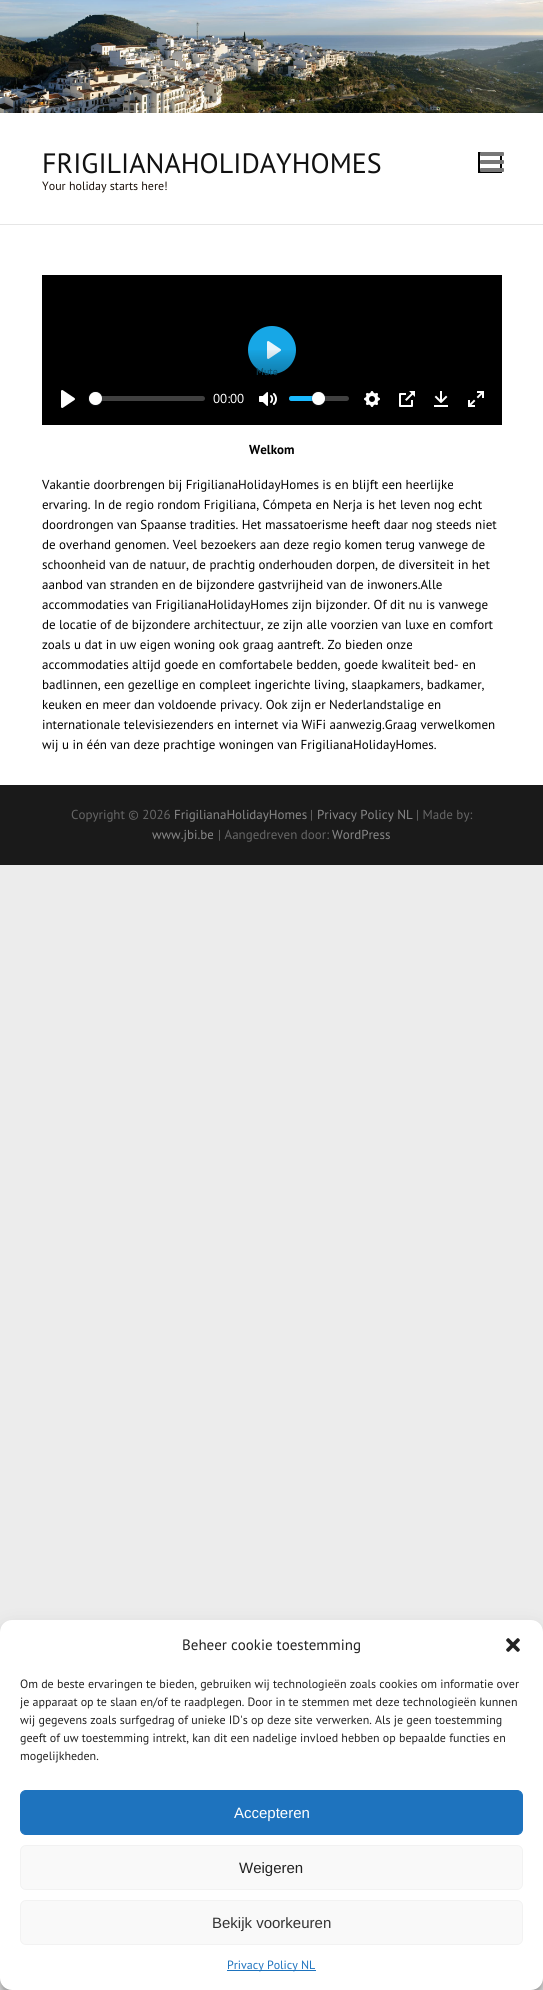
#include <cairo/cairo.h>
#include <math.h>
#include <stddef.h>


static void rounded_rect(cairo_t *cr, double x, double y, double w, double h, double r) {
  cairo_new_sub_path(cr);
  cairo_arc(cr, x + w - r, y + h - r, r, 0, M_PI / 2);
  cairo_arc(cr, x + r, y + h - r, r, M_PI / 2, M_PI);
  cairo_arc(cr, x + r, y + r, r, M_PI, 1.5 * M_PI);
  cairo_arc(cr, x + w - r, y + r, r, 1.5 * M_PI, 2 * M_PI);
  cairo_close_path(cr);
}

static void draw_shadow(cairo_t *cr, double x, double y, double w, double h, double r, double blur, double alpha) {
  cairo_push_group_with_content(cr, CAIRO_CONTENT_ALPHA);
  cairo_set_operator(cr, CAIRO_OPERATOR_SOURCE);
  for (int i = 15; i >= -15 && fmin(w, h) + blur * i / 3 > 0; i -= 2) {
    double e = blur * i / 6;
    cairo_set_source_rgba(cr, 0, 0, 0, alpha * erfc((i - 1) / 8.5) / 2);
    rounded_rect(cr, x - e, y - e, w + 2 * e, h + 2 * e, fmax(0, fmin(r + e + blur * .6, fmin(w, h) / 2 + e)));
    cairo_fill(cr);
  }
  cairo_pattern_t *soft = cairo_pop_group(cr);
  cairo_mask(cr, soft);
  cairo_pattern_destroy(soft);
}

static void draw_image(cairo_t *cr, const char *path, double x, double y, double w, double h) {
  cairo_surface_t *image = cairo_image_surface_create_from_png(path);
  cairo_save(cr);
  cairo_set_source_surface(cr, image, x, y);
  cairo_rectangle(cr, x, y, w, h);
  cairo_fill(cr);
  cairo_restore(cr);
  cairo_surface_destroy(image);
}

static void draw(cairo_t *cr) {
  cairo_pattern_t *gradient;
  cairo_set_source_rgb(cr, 236 / 255.0, 236 / 255.0, 236 / 255.0);
  cairo_paint(cr);
  cairo_set_source_rgb(cr, 1, 1, 1);
  cairo_rectangle(cr, 0, 113, 543, 672);
  cairo_fill(cr);
  draw_image(cr, "images/1.png", 0, 0, 543, 113);
  cairo_set_source_rgb(cr, 230 / 255.0, 230 / 255.0, 230 / 255.0);
  cairo_rectangle(cr, 0, 224, 543, 1);
  cairo_fill(cr);
  cairo_rectangle(cr, 479, 153, 22, 19);
  cairo_set_source_rgb(cr, 0, 0, 0);
  cairo_stroke(cr);
  draw_image(cr, "images/2.png", 480, 152, 24, 20);
  cairo_rectangle(cr, 42, 275, 460, 150);
  cairo_fill(cr);
  draw_image(cr, "images/3.png", 88, 391, 238, 15);
  cairo_set_source_rgb(cr, 23 / 255.0, 167 / 255.0, 230 / 255.0);
  cairo_arc(cr, 272, 350, 24, 0, 2 * M_PI);
  cairo_fill(cr);
  draw_image(cr, "images/4.png", 267, 341, 14, 18);
  gradient = cairo_pattern_create_linear(272, 348, 272, 425);
  cairo_pattern_add_color_stop_rgba(gradient, 0, 0, 0, 0, 0);
  cairo_pattern_add_color_stop_rgba(gradient, 1, 0, 0, 0, 0.75);
  cairo_set_source(cr, gradient);
  cairo_pattern_destroy(gradient);
  cairo_rectangle(cr, 88, 350, 238, 56);
  cairo_fill(cr);
  draw_image(cr, "images/5.png", 259, 392, 18, 14);
  cairo_set_source_rgba(cr, 1, 1, 1, 0.25);
  rounded_rect(cr, 289, 396, 60, 5, 2.5);
  cairo_fill(cr);
  cairo_set_source_rgb(cr, 26 / 255.0, 186 / 255.0, 1);
  cairo_new_path(cr);
  cairo_move_to(cr, 291.5, 396);
  cairo_line_to(cr, 319, 396);
  cairo_line_to(cr, 319, 401);
  cairo_line_to(cr, 291.5, 401);
  cairo_curve_to(cr, 290, 401, 289, 400, 289, 398.5);
  cairo_curve_to(cr, 289, 397, 290, 396, 291.5, 396);
  cairo_close_path(cr);
  cairo_fill(cr);
  cairo_arc(cr, 318.5, 398.5, 7, 0, 2 * M_PI);
  cairo_set_source_rgba(cr, 35 / 255.0, 40 / 255.0, 47 / 255.0, 0.2);
  cairo_set_line_width(cr, 1);
  cairo_stroke(cr);
  cairo_set_source_rgb(cr, 35 / 255.0, 40 / 255.0, 47 / 255.0);
  draw_shadow(cr, 312, 393, 13, 13, 6.5, 0.5, 0.15);
  cairo_set_source_rgb(cr, 1, 1, 1);
  cairo_arc(cr, 318.5, 398.5, 6.5, 0, 2 * M_PI);
  cairo_fill(cr);
  draw_image(cr, "images/6.png", 61, 390, 14, 18);
  cairo_set_source_rgba(cr, 1, 1, 1, 0.25);
  rounded_rect(cr, 89, 396, 116, 5, 2.5);
  cairo_fill(cr);
  cairo_arc(cr, 95.5, 398.5, 7, 0, 2 * M_PI);
  cairo_set_source_rgba(cr, 35 / 255.0, 40 / 255.0, 47 / 255.0, 0.2);
  cairo_stroke(cr);
  cairo_set_source_rgb(cr, 35 / 255.0, 40 / 255.0, 47 / 255.0);
  draw_shadow(cr, 89, 393, 13, 13, 6.5, 0.5, 0.15);
  cairo_set_source_rgb(cr, 1, 1, 1);
  cairo_arc(cr, 95.5, 398.5, 6.5, 0, 2 * M_PI);
  cairo_fill(cr);
  draw_image(cr, "images/7.png", 364, 391, 16, 16);
  draw_image(cr, "images/8.png", 399, 391, 16, 16);
  draw_image(cr, "images/9.png", 434, 391, 14, 16);
  draw_image(cr, "images/10.png", 468, 391, 16, 16);
  cairo_set_source_rgb(cr, 26 / 255.0, 26 / 255.0, 26 / 255.0);
  cairo_rectangle(cr, 0, 785, 543, 80);
  cairo_fill(cr);
  cairo_set_source_rgb(cr, 0, 0, 0);
  draw_shadow(cr, 0, 1626, 543, 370, 12, 3, 0.23);
  draw_shadow(cr, 0, 1630, 543, 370, 12, 10, 0.19);
  cairo_set_source_rgb(cr, 1, 1, 1);
  rounded_rect(cr, 0, 1620, 543, 370, 12);
  cairo_fill(cr);
  draw_image(cr, "images/11.png", 506, 1638, 14, 14);
  cairo_set_source_rgb(cr, 30 / 255.0, 115 / 255.0, 190 / 255.0);
  rounded_rect(cr, 20.5, 1790.5, 502, 44, 5.5);
  cairo_fill_preserve(cr);
  cairo_stroke(cr);
  cairo_set_source_rgb(cr, 249 / 255.0, 249 / 255.0, 249 / 255.0);
  rounded_rect(cr, 20.5, 1845.5, 502, 44, 5.5);
  cairo_fill_preserve(cr);
  cairo_set_source_rgb(cr, 242 / 255.0, 242 / 255.0, 242 / 255.0);
  cairo_stroke(cr);
  cairo_set_source_rgb(cr, 249 / 255.0, 249 / 255.0, 249 / 255.0);
  rounded_rect(cr, 20.5, 1900.5, 502, 44, 5.5);
  cairo_fill_preserve(cr);
  cairo_set_source_rgb(cr, 242 / 255.0, 242 / 255.0, 242 / 255.0);
  cairo_stroke(cr);
  cairo_set_source_rgb(cr, 30 / 255.0, 115 / 255.0, 190 / 255.0);
  cairo_rectangle(cr, 227, 1970, 89, 1);
  cairo_fill(cr);
  cairo_select_font_face(cr, "PT Sans", CAIRO_FONT_SLANT_NORMAL, CAIRO_FONT_WEIGHT_NORMAL);
  cairo_set_font_size(cr, 28);
  cairo_set_source_rgb(cr, 17 / 255.0, 17 / 255.0, 17 / 255.0);
  cairo_move_to(cr, 42, 173);
  cairo_show_text(cr, "FRIGILIANAHOLIDAYHOMES");
  cairo_set_font_size(cr, 12);
  cairo_set_source_rgb(cr, 25 / 255.0, 15 / 255.0, 8 / 255.0);
  cairo_move_to(cr, 42, 190);
  cairo_show_text(cr, "Your holiday starts here!");
  cairo_set_font_size(cr, 10);
  cairo_set_source_rgb(cr, 11 / 255.0, 81 / 255.0, 111 / 255.0);
  cairo_move_to(cr, 256, 375);
  cairo_show_text(cr, "Mute");
  cairo_set_font_size(cr, 13);
  cairo_set_source_rgb(cr, 1, 1, 1);
  cairo_move_to(cr, 213, 403);
  cairo_show_text(cr, "00:00");
  cairo_select_font_face(cr, "PT Sans", CAIRO_FONT_SLANT_NORMAL, CAIRO_FONT_WEIGHT_BOLD);
  cairo_set_source_rgb(cr, 0, 0, 0);
  cairo_move_to(cr, 249, 454);
  cairo_show_text(cr, "Welkom");
  cairo_select_font_face(cr, "PT Sans", CAIRO_FONT_SLANT_NORMAL, CAIRO_FONT_WEIGHT_NORMAL);
  cairo_move_to(cr, 42, 489);
  cairo_show_text(cr, "Vakantie doorbrengen bij FrigilianaHolidayHomes is en blijft een heerlijke");
  cairo_move_to(cr, 42, 509);
  cairo_show_text(cr, "ervaring. In de regio rondom Frigiliana, Cómpeta en Nerja is het leven nog echt");
  cairo_move_to(cr, 42, 529);
  cairo_show_text(cr, "doordrongen van Spaanse tradities. Het massatoerisme heeft daar nog steeds niet");
  cairo_move_to(cr, 42, 549);
  cairo_show_text(cr, "de overhand genomen. Veel bezoekers aan deze regio komen terug vanwege de");
  cairo_move_to(cr, 42, 569);
  cairo_show_text(cr, "schoonheid van de natuur, de prachtig onderhouden dorpen, de diversiteit in het");
  cairo_move_to(cr, 42, 589);
  cairo_show_text(cr, "aanbod van stranden en de bijzondere gastvrijheid van de inwoners.Alle");
  cairo_move_to(cr, 42, 609);
  cairo_show_text(cr, "accommodaties van FrigilianaHolidayHomes zijn bijzonder. Of dit nu is vanwege");
  cairo_move_to(cr, 42, 629);
  cairo_show_text(cr, "de locatie of de bijzondere architectuur, ze zijn alle voorzien van luxe en comfort");
  cairo_move_to(cr, 42, 649);
  cairo_show_text(cr, "zoals u dat in uw eigen woning ook graag aantreft. Zo bieden onze");
  cairo_move_to(cr, 42, 669);
  cairo_show_text(cr, "accommodaties altijd goede en comfortabele bedden, goede kwaliteit bed- en");
  cairo_move_to(cr, 42, 689);
  cairo_show_text(cr, "badlinnen, een gezellige en compleet ingerichte living, slaapkamers, badkamer,");
  cairo_move_to(cr, 42, 709);
  cairo_show_text(cr, "keuken en meer dan voldoende privacy. Ook zijn er Nederlandstalige en");
  cairo_move_to(cr, 42, 729);
  cairo_show_text(cr, "internationale televisiezenders en internet via WiFi aanwezig.Graag verwelkomen");
  cairo_move_to(cr, 42, 749);
  cairo_show_text(cr, "wij u in één van deze prachtige woningen van FrigilianaHolidayHomes.");
  cairo_set_source_rgb(cr, 102 / 255.0, 102 / 255.0, 102 / 255.0);
  cairo_move_to(cr, 71, 819);
  cairo_show_text(cr, "Copyright © 2026");
  cairo_set_source_rgb(cr, 136 / 255.0, 136 / 255.0, 136 / 255.0);
  cairo_move_to(cr, 174, 819);
  cairo_show_text(cr, "FrigilianaHolidayHomes");
  cairo_set_source_rgb(cr, 102 / 255.0, 102 / 255.0, 102 / 255.0);
  cairo_move_to(cr, 310, 819);
  cairo_show_text(cr, "|");
  cairo_set_source_rgb(cr, 136 / 255.0, 136 / 255.0, 136 / 255.0);
  cairo_move_to(cr, 317, 819);
  cairo_show_text(cr, "Privacy Policy NL");
  cairo_set_source_rgb(cr, 102 / 255.0, 102 / 255.0, 102 / 255.0);
  cairo_move_to(cr, 416, 819);
  cairo_show_text(cr, "| Made by:");
  cairo_set_source_rgb(cr, 136 / 255.0, 136 / 255.0, 136 / 255.0);
  cairo_move_to(cr, 152, 839);
  cairo_show_text(cr, "www.jbi.be");
  cairo_set_source_rgb(cr, 102 / 255.0, 102 / 255.0, 102 / 255.0);
  cairo_move_to(cr, 218, 839);
  cairo_show_text(cr, "| Aangedreven door:");
  cairo_set_source_rgb(cr, 136 / 255.0, 136 / 255.0, 136 / 255.0);
  cairo_move_to(cr, 332, 839);
  cairo_show_text(cr, "WordPress");
  cairo_set_font_size(cr, 15);
  cairo_set_source_rgb(cr, 34 / 255.0, 34 / 255.0, 34 / 255.0);
  cairo_move_to(cr, 182, 1650);
  cairo_show_text(cr, "Beheer cookie toestemming");
  cairo_set_font_size(cr, 12);
  cairo_move_to(cr, 20, 1688);
  cairo_show_text(cr, "Om de beste ervaringen te bieden, gebruiken wij technologieën zoals cookies om informatie over");
  cairo_move_to(cr, 20, 1706);
  cairo_show_text(cr, "je apparaat op te slaan en/of te raadplegen. Door in te stemmen met deze technologieën kunnen");
  cairo_move_to(cr, 20, 1724);
  cairo_show_text(cr, "wij gegevens zoals surfgedrag of unieke ID's op deze site verwerken. Als je geen toestemming");
  cairo_move_to(cr, 20, 1742);
  cairo_show_text(cr, "geeft of uw toestemming intrekt, kan dit een nadelige invloed hebben op bepaalde functies en");
  cairo_move_to(cr, 20, 1760);
  cairo_show_text(cr, "mogelijkheden.");
  cairo_select_font_face(cr, "Liberation Sans", CAIRO_FONT_SLANT_NORMAL, CAIRO_FONT_WEIGHT_NORMAL);
  cairo_set_font_size(cr, 15);
  cairo_set_source_rgb(cr, 1, 1, 1);
  cairo_move_to(cr, 234, 1818);
  cairo_show_text(cr, "Accepteren");
  cairo_set_source_rgb(cr, 34 / 255.0, 34 / 255.0, 34 / 255.0);
  cairo_move_to(cr, 239, 1873);
  cairo_show_text(cr, "Weigeren");
  cairo_set_source_rgb(cr, 51 / 255.0, 51 / 255.0, 51 / 255.0);
  cairo_move_to(cr, 212, 1928);
  cairo_show_text(cr, "Bekijk voorkeuren");
  cairo_select_font_face(cr, "PT Sans", CAIRO_FONT_SLANT_NORMAL, CAIRO_FONT_WEIGHT_NORMAL);
  cairo_set_font_size(cr, 12);
  cairo_set_source_rgb(cr, 30 / 255.0, 115 / 255.0, 190 / 255.0);
  cairo_move_to(cr, 227, 1969);
  cairo_show_text(cr, "Privacy Policy NL");
}

int main(void) {
  cairo_surface_t *surface = cairo_image_surface_create(CAIRO_FORMAT_RGB24, 543, 1990);
  cairo_t *cr = cairo_create(surface);
  cairo_font_options_t *options = cairo_font_options_create();
  cairo_font_options_set_hint_metrics(options, CAIRO_HINT_METRICS_OFF);
  cairo_font_options_set_hint_style(options, CAIRO_HINT_STYLE_NONE);
  cairo_set_font_options(cr, options);
  cairo_set_miter_limit(cr, 4);
  draw(cr);
  cairo_surface_write_to_png(surface, "out.png");
  cairo_font_options_destroy(options);
  cairo_destroy(cr);
  cairo_surface_destroy(surface);
  return 0;
}
